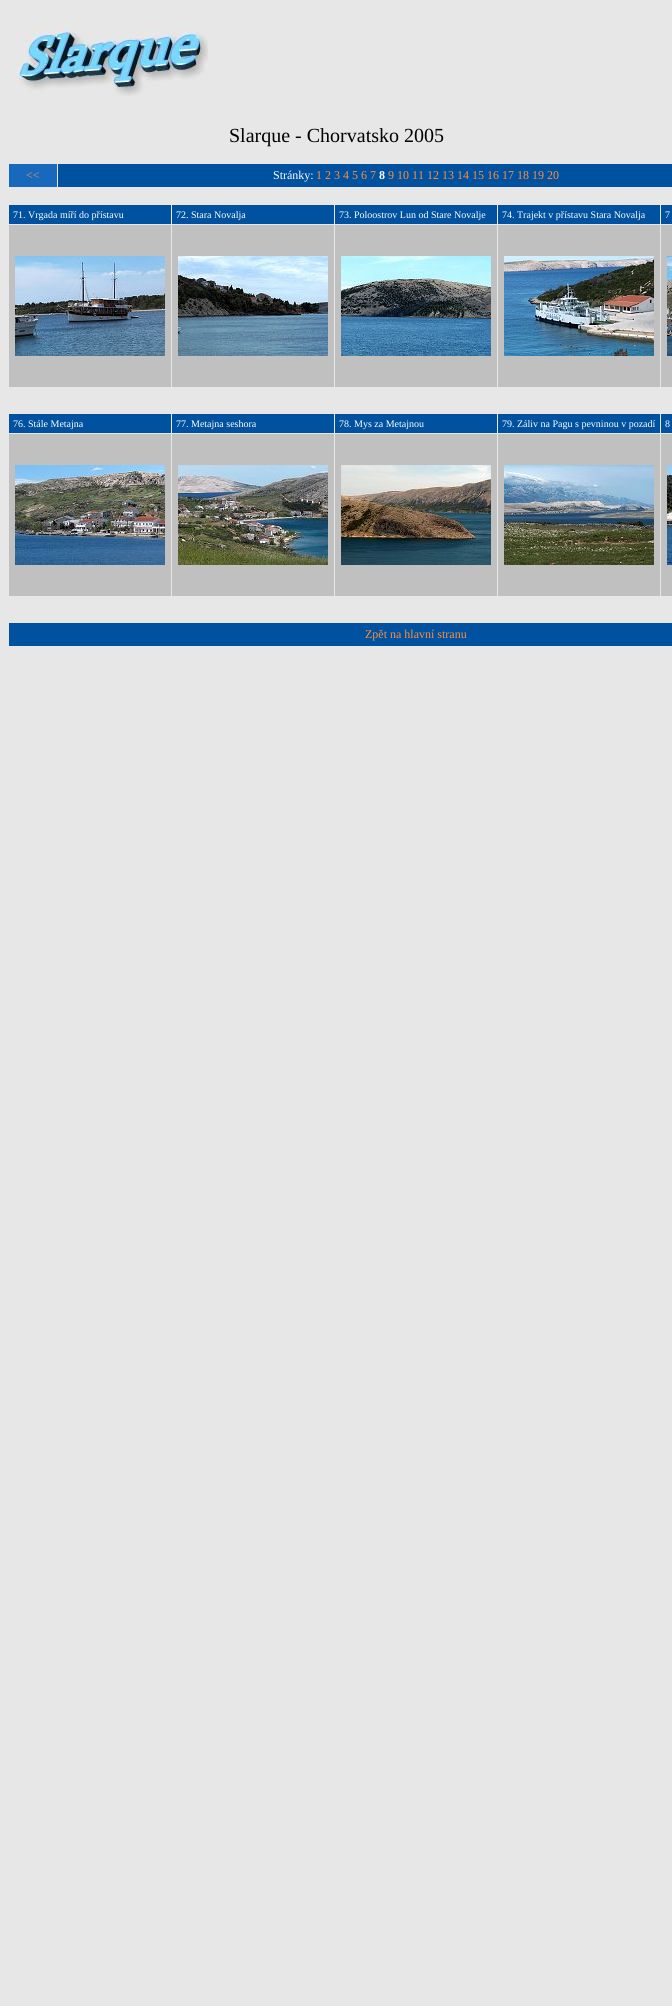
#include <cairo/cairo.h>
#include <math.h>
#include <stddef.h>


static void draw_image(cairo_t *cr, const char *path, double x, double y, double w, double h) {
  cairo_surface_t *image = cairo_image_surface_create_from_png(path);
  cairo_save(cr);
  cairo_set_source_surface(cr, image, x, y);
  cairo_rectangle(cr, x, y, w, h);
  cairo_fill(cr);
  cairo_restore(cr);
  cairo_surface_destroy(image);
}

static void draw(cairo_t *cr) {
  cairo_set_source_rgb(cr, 231 / 255.0, 231 / 255.0, 231 / 255.0);
  cairo_paint(cr);
  draw_image(cr, "images/1.png", 8, 24, 200, 72);
  cairo_set_source_rgb(cr, 24 / 255.0, 105 / 255.0, 190 / 255.0);
  cairo_rectangle(cr, 9, 164, 48, 23);
  cairo_fill(cr);
  cairo_set_source_rgb(cr, 0, 82 / 255.0, 160 / 255.0);
  cairo_rectangle(cr, 58, 164, 614, 23);
  cairo_fill(cr);
  cairo_rectangle(cr, 9, 205, 162, 19);
  cairo_fill(cr);
  cairo_rectangle(cr, 172, 205, 162, 19);
  cairo_fill(cr);
  cairo_rectangle(cr, 335, 205, 162, 19);
  cairo_fill(cr);
  cairo_rectangle(cr, 498, 205, 162, 19);
  cairo_fill(cr);
  cairo_rectangle(cr, 661, 205, 11, 19);
  cairo_fill(cr);
  cairo_set_source_rgb(cr, 192 / 255.0, 192 / 255.0, 192 / 255.0);
  cairo_rectangle(cr, 9, 225, 162, 162);
  cairo_fill(cr);
  draw_image(cr, "images/2.png", 15, 256, 150, 100);
  cairo_rectangle(cr, 172, 225, 162, 162);
  cairo_fill(cr);
  draw_image(cr, "images/3.png", 178, 256, 150, 100);
  cairo_rectangle(cr, 335, 225, 162, 162);
  cairo_fill(cr);
  draw_image(cr, "images/4.png", 341, 256, 150, 100);
  cairo_rectangle(cr, 498, 225, 162, 162);
  cairo_fill(cr);
  draw_image(cr, "images/5.png", 504, 256, 150, 100);
  cairo_rectangle(cr, 661, 225, 11, 162);
  cairo_fill(cr);
  draw_image(cr, "images/6.png", 667, 256, 5, 100);
  cairo_set_source_rgb(cr, 0, 82 / 255.0, 160 / 255.0);
  cairo_rectangle(cr, 9, 414, 162, 19);
  cairo_fill(cr);
  cairo_rectangle(cr, 172, 414, 162, 19);
  cairo_fill(cr);
  cairo_rectangle(cr, 335, 414, 162, 19);
  cairo_fill(cr);
  cairo_rectangle(cr, 498, 414, 162, 19);
  cairo_fill(cr);
  cairo_rectangle(cr, 661, 414, 11, 19);
  cairo_fill(cr);
  cairo_set_source_rgb(cr, 192 / 255.0, 192 / 255.0, 192 / 255.0);
  cairo_rectangle(cr, 9, 434, 162, 162);
  cairo_fill(cr);
  draw_image(cr, "images/7.png", 15, 465, 150, 100);
  cairo_rectangle(cr, 172, 434, 162, 162);
  cairo_fill(cr);
  draw_image(cr, "images/8.png", 178, 465, 150, 100);
  cairo_rectangle(cr, 335, 434, 162, 162);
  cairo_fill(cr);
  draw_image(cr, "images/9.png", 341, 465, 150, 100);
  cairo_rectangle(cr, 498, 434, 162, 162);
  cairo_fill(cr);
  draw_image(cr, "images/10.png", 504, 465, 150, 100);
  cairo_rectangle(cr, 661, 434, 11, 162);
  cairo_fill(cr);
  draw_image(cr, "images/11.png", 667, 465, 5, 100);
  cairo_set_source_rgb(cr, 0, 82 / 255.0, 160 / 255.0);
  cairo_rectangle(cr, 9, 623, 663, 23);
  cairo_fill(cr);
  cairo_select_font_face(cr, "Liberation Serif", CAIRO_FONT_SLANT_NORMAL, CAIRO_FONT_WEIGHT_NORMAL);
  cairo_set_font_size(cr, 20);
  cairo_set_source_rgb(cr, 0, 0, 0);
  cairo_move_to(cr, 229, 142);
  cairo_show_text(cr, "Slarque - Chorvatsko 2005");
  cairo_set_font_size(cr, 12);
  cairo_set_source_rgb(cr, 251 / 255.0, 143 / 255.0, 64 / 255.0);
  cairo_move_to(cr, 26, 179);
  cairo_show_text(cr, "<<");
  cairo_set_source_rgb(cr, 1, 1, 1);
  cairo_move_to(cr, 273, 179);
  cairo_show_text(cr, "Stránky:");
  cairo_set_source_rgb(cr, 251 / 255.0, 143 / 255.0, 64 / 255.0);
  cairo_move_to(cr, 316, 179);
  cairo_show_text(cr, "1 2 3 4 5 6 7");
  cairo_select_font_face(cr, "Liberation Serif", CAIRO_FONT_SLANT_NORMAL, CAIRO_FONT_WEIGHT_BOLD);
  cairo_set_source_rgb(cr, 1, 1, 1);
  cairo_move_to(cr, 379, 179);
  cairo_show_text(cr, "8");
  cairo_select_font_face(cr, "Liberation Serif", CAIRO_FONT_SLANT_NORMAL, CAIRO_FONT_WEIGHT_NORMAL);
  cairo_set_source_rgb(cr, 251 / 255.0, 143 / 255.0, 64 / 255.0);
  cairo_move_to(cr, 388, 179);
  cairo_show_text(cr, "9 10 11 12 13 14 15 16 17 18 19 20");
  cairo_set_font_size(cr, 10);
  cairo_set_source_rgb(cr, 1, 1, 1);
  cairo_move_to(cr, 13, 218);
  cairo_show_text(cr, "71. Vrgada míří do přístavu");
  cairo_move_to(cr, 176, 218);
  cairo_show_text(cr, "72. Stara Novalja");
  cairo_move_to(cr, 339, 218);
  cairo_show_text(cr, "73. Poloostrov Lun od Stare Novalje");
  cairo_move_to(cr, 502, 218);
  cairo_show_text(cr, "74. Trajekt v přístavu Stara Novalja");
  cairo_move_to(cr, 665, 218);
  cairo_show_text(cr, "7");
  cairo_move_to(cr, 13, 427);
  cairo_show_text(cr, "76. Stále Metajna");
  cairo_move_to(cr, 176, 427);
  cairo_show_text(cr, "77. Metajna seshora");
  cairo_move_to(cr, 339, 427);
  cairo_show_text(cr, "78. Mys za Metajnou");
  cairo_move_to(cr, 502, 427);
  cairo_show_text(cr, "79. Záliv na Pagu s pevninou v pozadí");
  cairo_move_to(cr, 665, 427);
  cairo_show_text(cr, "8");
  cairo_set_font_size(cr, 12);
  cairo_set_source_rgb(cr, 251 / 255.0, 143 / 255.0, 64 / 255.0);
  cairo_move_to(cr, 365, 638);
  cairo_show_text(cr, "Zpět na hlavní stranu");
}

int main(void) {
  cairo_surface_t *surface = cairo_image_surface_create(CAIRO_FORMAT_RGB24, 672, 2006);
  cairo_t *cr = cairo_create(surface);
  cairo_font_options_t *options = cairo_font_options_create();
  cairo_font_options_set_hint_metrics(options, CAIRO_HINT_METRICS_OFF);
  cairo_font_options_set_hint_style(options, CAIRO_HINT_STYLE_NONE);
  cairo_set_font_options(cr, options);
  cairo_set_miter_limit(cr, 4);
  draw(cr);
  cairo_surface_write_to_png(surface, "out.png");
  cairo_font_options_destroy(options);
  cairo_destroy(cr);
  cairo_surface_destroy(surface);
  return 0;
}
